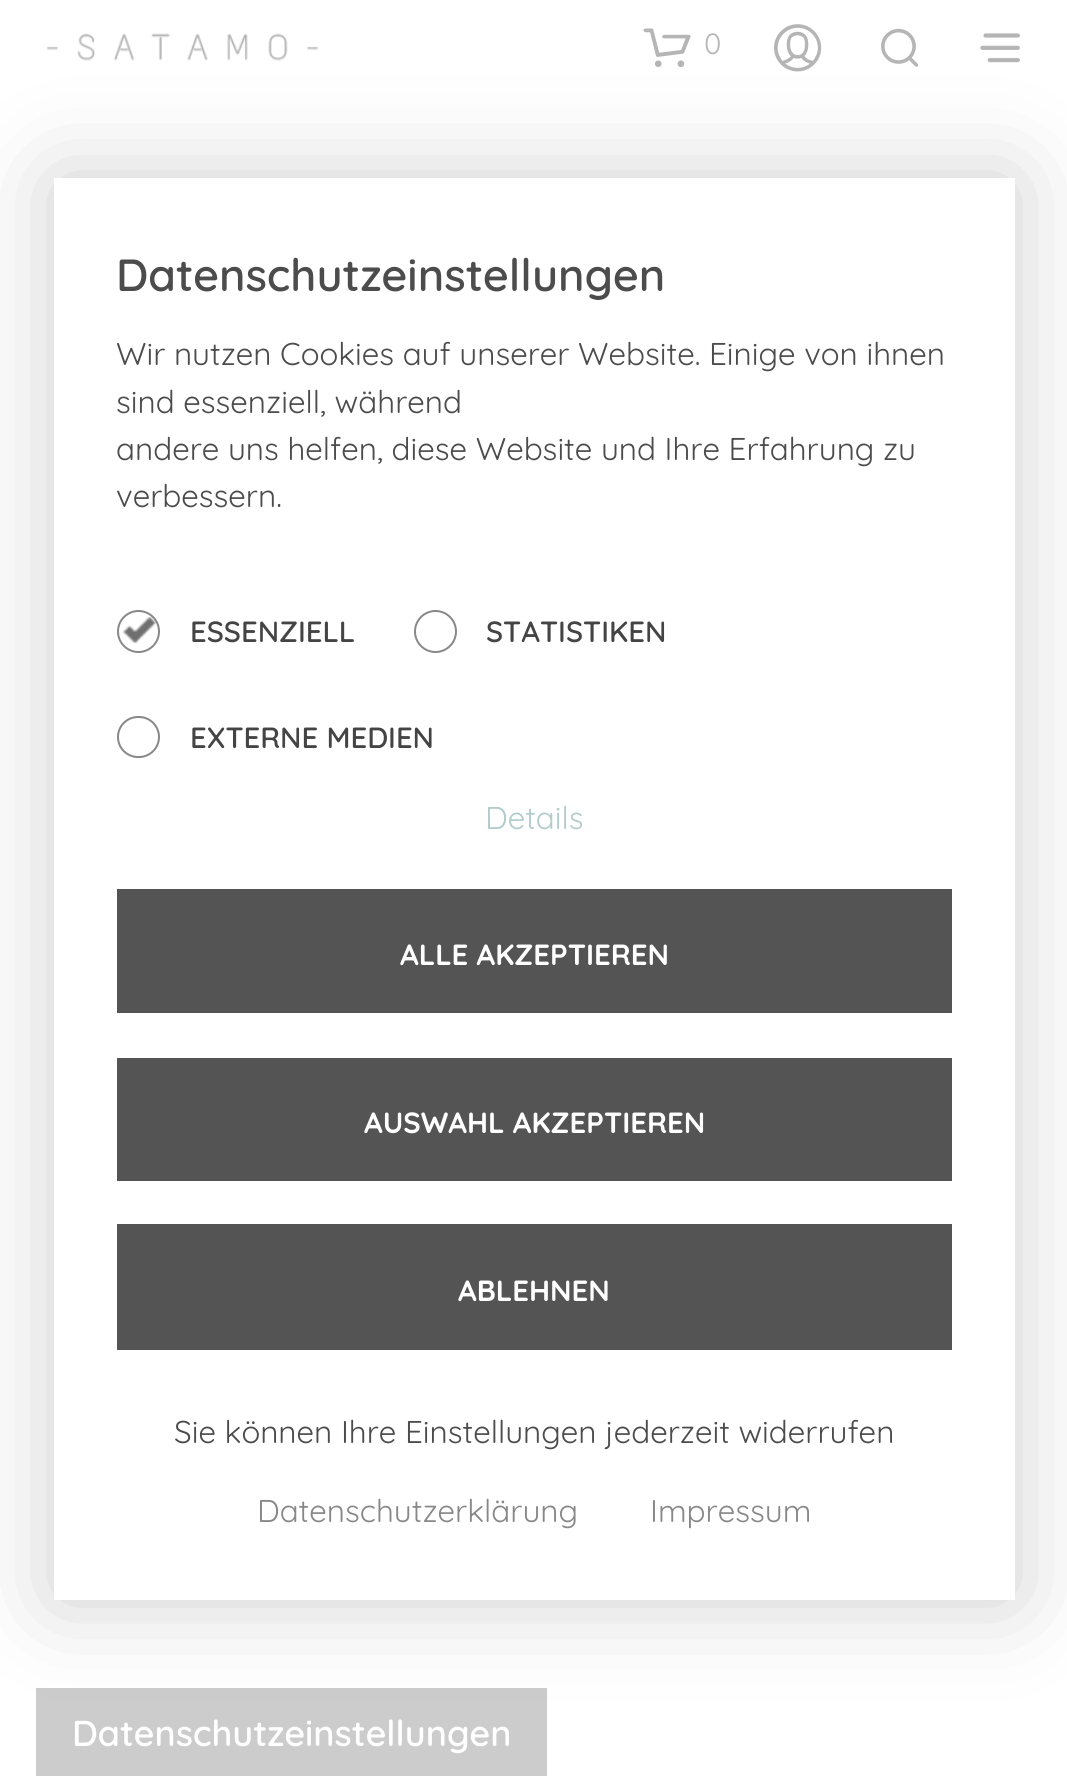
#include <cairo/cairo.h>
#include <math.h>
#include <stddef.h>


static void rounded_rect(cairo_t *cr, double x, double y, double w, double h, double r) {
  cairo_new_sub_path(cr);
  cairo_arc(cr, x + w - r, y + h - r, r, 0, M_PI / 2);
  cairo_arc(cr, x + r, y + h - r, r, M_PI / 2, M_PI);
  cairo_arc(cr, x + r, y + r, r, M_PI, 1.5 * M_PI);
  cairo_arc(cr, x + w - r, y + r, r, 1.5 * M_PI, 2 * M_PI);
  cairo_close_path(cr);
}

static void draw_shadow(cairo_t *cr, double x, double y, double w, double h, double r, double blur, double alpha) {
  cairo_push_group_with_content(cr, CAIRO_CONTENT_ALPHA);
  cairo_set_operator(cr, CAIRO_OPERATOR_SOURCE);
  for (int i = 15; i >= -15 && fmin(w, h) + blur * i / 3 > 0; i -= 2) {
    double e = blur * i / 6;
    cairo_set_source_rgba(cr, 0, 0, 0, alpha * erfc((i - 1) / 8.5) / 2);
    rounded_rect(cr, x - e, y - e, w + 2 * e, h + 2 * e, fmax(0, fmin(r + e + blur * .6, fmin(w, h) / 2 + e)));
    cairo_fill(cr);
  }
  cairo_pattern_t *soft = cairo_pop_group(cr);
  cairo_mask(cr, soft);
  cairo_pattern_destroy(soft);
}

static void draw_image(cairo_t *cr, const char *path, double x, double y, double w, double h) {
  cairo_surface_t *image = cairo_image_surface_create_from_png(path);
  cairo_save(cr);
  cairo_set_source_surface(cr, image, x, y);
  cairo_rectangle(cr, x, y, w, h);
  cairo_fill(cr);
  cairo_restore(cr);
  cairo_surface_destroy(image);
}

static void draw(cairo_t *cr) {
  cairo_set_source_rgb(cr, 1, 1, 1);
  cairo_paint(cr);
  draw_image(cr, "images/1.png", 46, 33, 273, 28);
  draw_image(cr, "images/2.png", 643, 28, 48, 40);
  draw_image(cr, "images/3.png", 774, 24, 48, 48);
  draw_image(cr, "images/4.png", 881, 28, 38, 39);
  draw_image(cr, "images/5.png", 980, 33, 40, 30);
  cairo_set_source_rgb(cr, 204 / 255.0, 204 / 255.0, 204 / 255.0);
  cairo_rectangle(cr, 36, 1688, 511, 88);
  cairo_fill(cr);
  cairo_set_source_rgb(cr, 0, 0, 0);
  draw_shadow(cr, 54, 178, 961, 1422, 0, 47, 0.2);
  cairo_set_source_rgb(cr, 1, 1, 1);
  cairo_rectangle(cr, 54, 178, 961, 1422);
  cairo_fill(cr);
  cairo_arc(cr, 138.5, 631.5, 20.5, 0, 2 * M_PI);
  cairo_set_source_rgb(cr, 136 / 255.0, 136 / 255.0, 136 / 255.0);
  cairo_stroke(cr);
  draw_image(cr, "images/6.png", 122, 616, 34, 28);
  cairo_arc(cr, 435.5, 631.5, 20.5, 0, 2 * M_PI);
  cairo_stroke(cr);
  rounded_rect(cr, 118, 717, 41, 40, 20);
  cairo_stroke(cr);
  cairo_set_source_rgb(cr, 84 / 255.0, 84 / 255.0, 84 / 255.0);
  cairo_rectangle(cr, 117, 889, 835, 124);
  cairo_fill(cr);
  cairo_rectangle(cr, 117, 1058, 835, 123);
  cairo_fill(cr);
  cairo_rectangle(cr, 117, 1224, 835, 126);
  cairo_fill(cr);
  cairo_select_font_face(cr, "Quicksand Light", CAIRO_FONT_SLANT_NORMAL, CAIRO_FONT_WEIGHT_NORMAL);
  cairo_set_font_size(cr, 29.25);
  cairo_set_source_rgb(cr, 182 / 255.0, 182 / 255.0, 182 / 255.0);
  cairo_move_to(cr, 704, 54);
  cairo_show_text(cr, "0");
  cairo_select_font_face(cr, "Quicksand SemiBold", CAIRO_FONT_SLANT_NORMAL, CAIRO_FONT_WEIGHT_NORMAL);
  cairo_set_font_size(cr, 45);
  cairo_set_source_rgb(cr, 76 / 255.0, 76 / 255.0, 76 / 255.0);
  cairo_move_to(cr, 116, 291);
  cairo_show_text(cr, "Datenschutzeinstellungen");
  cairo_select_font_face(cr, "Quicksand Light", CAIRO_FONT_SLANT_NORMAL, CAIRO_FONT_WEIGHT_NORMAL);
  cairo_set_font_size(cr, 31.5);
  cairo_move_to(cr, 116, 365);
  cairo_show_text(cr, "Wir nutzen Cookies auf unserer Website. Einige von ihnen");
  cairo_move_to(cr, 116, 413);
  cairo_show_text(cr, "sind essenziell, während");
  cairo_move_to(cr, 116, 460);
  cairo_show_text(cr, "andere uns helfen, diese Website und Ihre Erfahrung zu");
  cairo_move_to(cr, 116, 507);
  cairo_show_text(cr, "verbessern.");
  cairo_select_font_face(cr, "Quicksand SemiBold", CAIRO_FONT_SLANT_NORMAL, CAIRO_FONT_WEIGHT_NORMAL);
  cairo_set_font_size(cr, 29.25);
  cairo_set_source_rgb(cr, 68 / 255.0, 68 / 255.0, 68 / 255.0);
  cairo_move_to(cr, 190, 642);
  cairo_show_text(cr, "ESSENZIELL");
  cairo_move_to(cr, 486, 642);
  cairo_show_text(cr, "STATISTIKEN");
  cairo_move_to(cr, 190, 748);
  cairo_show_text(cr, "EXTERNE MEDIEN");
  cairo_select_font_face(cr, "Quicksand Light", CAIRO_FONT_SLANT_NORMAL, CAIRO_FONT_WEIGHT_NORMAL);
  cairo_set_font_size(cr, 31.5);
  cairo_set_source_rgb(cr, 177 / 255.0, 204 / 255.0, 203 / 255.0);
  cairo_move_to(cr, 485, 829);
  cairo_show_text(cr, "Details");
  cairo_select_font_face(cr, "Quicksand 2 Light", CAIRO_FONT_SLANT_NORMAL, CAIRO_FONT_WEIGHT_NORMAL);
  cairo_set_font_size(cr, 29.25);
  cairo_set_source_rgb(cr, 1, 1, 1);
  cairo_move_to(cr, 400, 965);
  cairo_show_text(cr, "ALLE AKZEPTIEREN");
  cairo_move_to(cr, 364, 1133);
  cairo_show_text(cr, "AUSWAHL AKZEPTIEREN");
  cairo_move_to(cr, 458, 1301);
  cairo_show_text(cr, "ABLEHNEN");
  cairo_select_font_face(cr, "Quicksand Light", CAIRO_FONT_SLANT_NORMAL, CAIRO_FONT_WEIGHT_NORMAL);
  cairo_set_font_size(cr, 31.5);
  cairo_set_source_rgb(cr, 76 / 255.0, 76 / 255.0, 76 / 255.0);
  cairo_move_to(cr, 174, 1443);
  cairo_show_text(cr, "Sie können Ihre Einstellungen jederzeit widerrufen");
  cairo_set_source_rgb(cr, 136 / 255.0, 136 / 255.0, 136 / 255.0);
  cairo_move_to(cr, 257, 1522);
  cairo_show_text(cr, "Datenschutzerklärung");
  cairo_move_to(cr, 650, 1522);
  cairo_show_text(cr, "Impressum");
  cairo_select_font_face(cr, "Quicksand SemiBold", CAIRO_FONT_SLANT_NORMAL, CAIRO_FONT_WEIGHT_NORMAL);
  cairo_set_font_size(cr, 36);
  cairo_set_source_rgb(cr, 1, 1, 1);
  cairo_move_to(cr, 72, 1746);
  cairo_show_text(cr, "Datenschutzeinstellungen");
}

int main(void) {
  cairo_surface_t *surface = cairo_image_surface_create(CAIRO_FORMAT_RGB24, 1067, 1776);
  cairo_t *cr = cairo_create(surface);
  cairo_font_options_t *options = cairo_font_options_create();
  cairo_font_options_set_hint_metrics(options, CAIRO_HINT_METRICS_OFF);
  cairo_font_options_set_hint_style(options, CAIRO_HINT_STYLE_NONE);
  cairo_set_font_options(cr, options);
  cairo_set_miter_limit(cr, 4);
  draw(cr);
  cairo_surface_write_to_png(surface, "out.png");
  cairo_font_options_destroy(options);
  cairo_destroy(cr);
  cairo_surface_destroy(surface);
  return 0;
}
